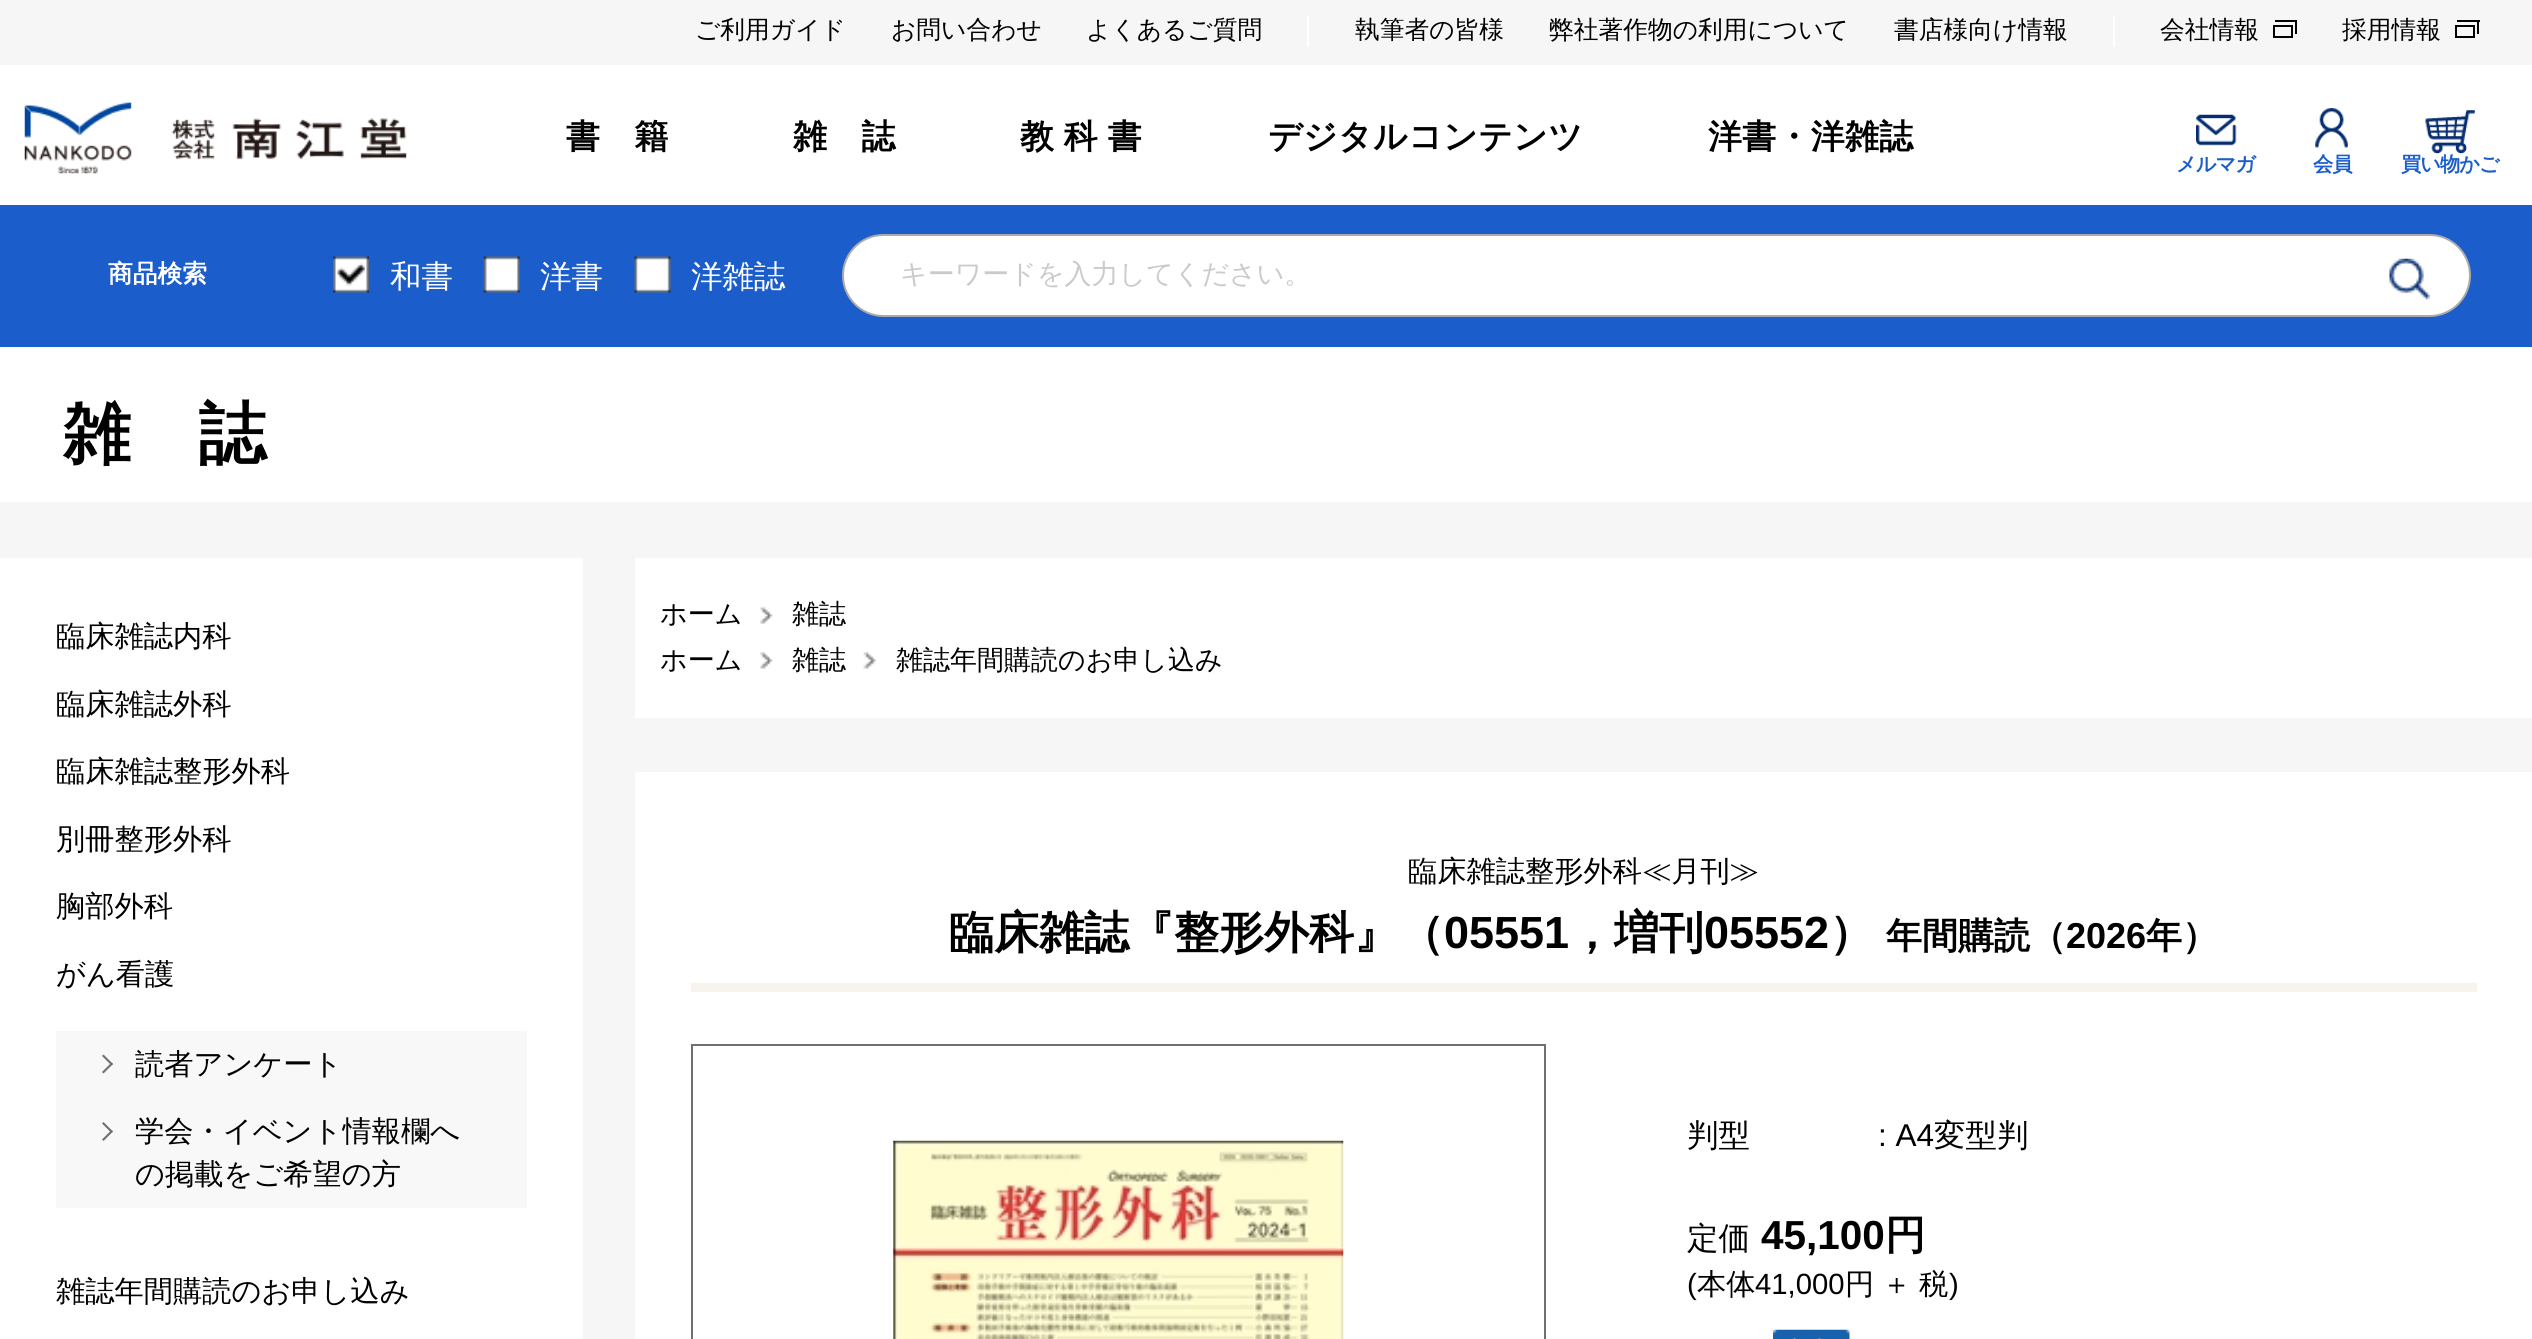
#include <cairo/cairo.h>
#include <math.h>
#include <stddef.h>


static void draw_spaced(cairo_t *cr, double x, double y, const char *s, double letter, double word) {
  cairo_move_to(cr, x, y);
  while (*s) {
    char ch[5] = {0};
    int n = 0;
    do ch[n++] = *s++; while ((*s & 0xC0) == 0x80);
    cairo_show_text(cr, ch);
    cairo_rel_move_to(cr, letter + word * (*ch == ' '), 0);
  }
}

static void rounded_rect(cairo_t *cr, double x, double y, double w, double h, double r) {
  cairo_new_sub_path(cr);
  cairo_arc(cr, x + w - r, y + h - r, r, 0, M_PI / 2);
  cairo_arc(cr, x + r, y + h - r, r, M_PI / 2, M_PI);
  cairo_arc(cr, x + r, y + r, r, M_PI, 1.5 * M_PI);
  cairo_arc(cr, x + w - r, y + r, r, 1.5 * M_PI, 2 * M_PI);
  cairo_close_path(cr);
}

static void draw_image(cairo_t *cr, const char *path, double x, double y, double w, double h) {
  cairo_surface_t *image = cairo_image_surface_create_from_png(path);
  cairo_save(cr);
  cairo_set_source_surface(cr, image, x, y);
  cairo_rectangle(cr, x, y, w, h);
  cairo_fill(cr);
  cairo_restore(cr);
  cairo_surface_destroy(image);
}

static void draw(cairo_t *cr) {
  cairo_set_source_rgb(cr, 246 / 255.0, 246 / 255.0, 246 / 255.0);
  cairo_paint(cr);
  cairo_set_source_rgb(cr, 1, 1, 1);
  cairo_rectangle(cr, 0, 65, 2532, 437);
  cairo_fill(cr);
  cairo_rectangle(cr, 1307, 16, 2, 31);
  cairo_fill(cr);
  cairo_rectangle(cr, 2113, 16, 2, 31);
  cairo_fill(cr);
  cairo_set_source_rgb(cr, 0, 0, 0);
  cairo_rectangle(cr, 2275, 20, 22, 2);
  cairo_fill(cr);
  cairo_rectangle(cr, 2295, 20, 2, 14);
  cairo_fill(cr);
  cairo_rectangle(cr, 2274, 26, 18, 11);
  cairo_stroke(cr);
  cairo_rectangle(cr, 2457, 20, 23, 2);
  cairo_fill(cr);
  cairo_rectangle(cr, 2477, 20, 2, 14);
  cairo_fill(cr);
  cairo_rectangle(cr, 2456, 26, 18, 11);
  cairo_stroke(cr);
  draw_image(cr, "images/1.png", 24, 102, 383, 72);
  draw_image(cr, "images/2.png", 2196, 114, 41, 32);
  draw_image(cr, "images/3.png", 2315, 108, 33, 40);
  draw_image(cr, "images/4.png", 2425, 110, 50, 45);
  cairo_set_source_rgb(cr, 26 / 255.0, 93 / 255.0, 203 / 255.0);
  cairo_rectangle(cr, 0, 205, 2532, 142);
  cairo_fill(cr);
  draw_image(cr, "images/5.png", 333, 256, 36, 37);
  draw_image(cr, "images/6.png", 483, 256, 37, 37);
  draw_image(cr, "images/7.png", 634, 256, 37, 37);
  cairo_set_source_rgb(cr, 1, 1, 1);
  rounded_rect(cr, 843, 235, 1627, 81, 40.5);
  cairo_fill_preserve(cr);
  cairo_set_source_rgb(cr, 171 / 255.0, 171 / 255.0, 171 / 255.0);
  cairo_stroke(cr);
  draw_image(cr, "images/8.png", 2389, 258, 41, 42);
  cairo_set_source_rgb(cr, 1, 1, 1);
  cairo_rectangle(cr, 0, 558, 583, 781);
  cairo_fill(cr);
  cairo_set_source_rgb(cr, 248 / 255.0, 248 / 255.0, 248 / 255.0);
  cairo_rectangle(cr, 56, 1031, 471, 177);
  cairo_fill(cr);
  cairo_set_source_rgb(cr, 112 / 255.0, 112 / 255.0, 112 / 255.0);
  cairo_new_path(cr);
  cairo_move_to(cr, 102, 1056);
  cairo_line_to(cr, 103.5, 1054.5);
  cairo_line_to(cr, 113, 1064);
  cairo_line_to(cr, 111.5, 1065.5);
  cairo_close_path(cr);
  cairo_fill(cr);
  cairo_new_path(cr);
  cairo_move_to(cr, 102, 1072);
  cairo_line_to(cr, 111.5, 1062.5);
  cairo_line_to(cr, 113, 1064);
  cairo_line_to(cr, 103.5, 1073.5);
  cairo_close_path(cr);
  cairo_fill(cr);
  cairo_new_path(cr);
  cairo_move_to(cr, 102, 1123.5);
  cairo_line_to(cr, 103.5, 1122);
  cairo_line_to(cr, 113, 1131.5);
  cairo_line_to(cr, 111.5, 1133);
  cairo_close_path(cr);
  cairo_fill(cr);
  cairo_new_path(cr);
  cairo_move_to(cr, 102, 1139.5);
  cairo_line_to(cr, 111.5, 1130);
  cairo_line_to(cr, 113, 1131.5);
  cairo_line_to(cr, 103.5, 1141);
  cairo_close_path(cr);
  cairo_fill(cr);
  cairo_set_source_rgb(cr, 1, 1, 1);
  cairo_rectangle(cr, 635, 558, 1897, 160);
  cairo_fill(cr);
  draw_image(cr, "images/9.png", 760, 607, 13, 17);
  draw_image(cr, "images/9.png", 760, 652, 13, 17);
  draw_image(cr, "images/10.png", 863, 652, 13, 17);
  cairo_rectangle(cr, 635, 772, 1897, 567);
  cairo_fill(cr);
  cairo_set_source_rgb(cr, 247 / 255.0, 244 / 255.0, 237 / 255.0);
  cairo_rectangle(cr, 691, 983, 1786, 9);
  cairo_fill(cr);
  cairo_rectangle(cr, 692, 1045, 853, 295);
  cairo_set_source_rgb(cr, 112 / 255.0, 112 / 255.0, 112 / 255.0);
  cairo_stroke(cr);
  draw_image(cr, "images/11.png", 893, 1140, 451, 199);
  draw_image(cr, "images/12.png", 1773, 1329, 77, 10);
  cairo_select_font_face(cr, "WenQuanYi Zen Hei Medium", CAIRO_FONT_SLANT_NORMAL, CAIRO_FONT_WEIGHT_NORMAL);
  cairo_set_font_size(cr, 24.75);
  cairo_set_source_rgb(cr, 0, 0, 0);
  cairo_move_to(cr, 695, 38);
  cairo_show_text(cr, "ご利用ガイド");
  cairo_move_to(cr, 891, 38);
  cairo_show_text(cr, "お問い合わせ");
  cairo_move_to(cr, 1086, 38);
  cairo_show_text(cr, "よくあるご質問");
  cairo_move_to(cr, 1355, 38);
  cairo_show_text(cr, "執筆者の皆様");
  cairo_move_to(cr, 1549, 38);
  cairo_show_text(cr, "弊社著作物の利用について");
  cairo_move_to(cr, 1894, 38);
  cairo_show_text(cr, "書店様向け情報");
  cairo_move_to(cr, 2160, 38);
  cairo_show_text(cr, "会社情報");
  cairo_move_to(cr, 2342, 38);
  cairo_show_text(cr, "採用情報");
  cairo_select_font_face(cr, "WenQuanYi Zen Hei", CAIRO_FONT_SLANT_NORMAL, CAIRO_FONT_WEIGHT_BOLD);
  cairo_set_font_size(cr, 33.75);
  draw_spaced(cr, 566, 148, "書　籍", 0.5, 0);
  draw_spaced(cr, 793, 148, "雑　誌", 0.5, 0);
  draw_spaced(cr, 1020, 148, "教 科 書", 0.5, -1);
  draw_spaced(cr, 1268, 148, "デジタルコンテンツ", 0.5, 0);
  draw_spaced(cr, 1708, 148, "洋書・洋雑誌", 0.5, 0);
  cairo_set_font_size(cr, 20.25);
  cairo_set_source_rgb(cr, 26 / 255.0, 93 / 255.0, 203 / 255.0);
  draw_spaced(cr, 2176, 171, "メルマガ", -1, 0);
  draw_spaced(cr, 2313, 171, "会員", -1, 0);
  draw_spaced(cr, 2401, 171, "買い物かご", -1, 0);
  cairo_set_font_size(cr, 24.75);
  cairo_set_source_rgb(cr, 1, 1, 1);
  cairo_move_to(cr, 108, 282);
  cairo_show_text(cr, "商品検索");
  cairo_select_font_face(cr, "WenQuanYi Zen Hei Medium", CAIRO_FONT_SLANT_NORMAL, CAIRO_FONT_WEIGHT_NORMAL);
  cairo_set_font_size(cr, 31.5);
  cairo_move_to(cr, 390, 287);
  cairo_show_text(cr, "和書");
  cairo_move_to(cr, 540, 287);
  cairo_show_text(cr, "洋書");
  cairo_move_to(cr, 691, 287);
  cairo_show_text(cr, "洋雑誌");
  cairo_set_font_size(cr, 27);
  cairo_set_source_rgb(cr, 202 / 255.0, 202 / 255.0, 202 / 255.0);
  cairo_move_to(cr, 900, 283);
  cairo_show_text(cr, "キーワードを入力してください。");
  cairo_select_font_face(cr, "WenQuanYi Zen Hei", CAIRO_FONT_SLANT_NORMAL, CAIRO_FONT_WEIGHT_BOLD);
  cairo_set_font_size(cr, 67.5);
  cairo_set_source_rgb(cr, 0, 0, 0);
  draw_spaced(cr, 63, 457, "雑誌", 68, 0);
  cairo_select_font_face(cr, "WenQuanYi Zen Hei Medium", CAIRO_FONT_SLANT_NORMAL, CAIRO_FONT_WEIGHT_NORMAL);
  cairo_set_font_size(cr, 29.25);
  cairo_move_to(cr, 56, 646);
  cairo_show_text(cr, "臨床雑誌内科");
  cairo_move_to(cr, 56, 714);
  cairo_show_text(cr, "臨床雑誌外科");
  cairo_move_to(cr, 56, 781);
  cairo_show_text(cr, "臨床雑誌整形外科");
  cairo_move_to(cr, 56, 849);
  cairo_show_text(cr, "別冊整形外科");
  cairo_move_to(cr, 56, 916);
  cairo_show_text(cr, "胸部外科");
  cairo_move_to(cr, 56, 984);
  cairo_show_text(cr, "がん看護");
  cairo_move_to(cr, 135, 1074);
  cairo_show_text(cr, "読者アンケート");
  cairo_move_to(cr, 135, 1141);
  cairo_show_text(cr, "学会・イベント情報欄へ");
  cairo_move_to(cr, 135, 1184);
  cairo_show_text(cr, "の掲載をご希望の方");
  cairo_move_to(cr, 56, 1301);
  cairo_show_text(cr, "雑誌年間購読のお申し込み");
  cairo_set_font_size(cr, 27);
  cairo_move_to(cr, 660, 623);
  cairo_show_text(cr, "ホーム");
  cairo_move_to(cr, 792, 623);
  cairo_show_text(cr, "雑誌");
  cairo_move_to(cr, 660, 669);
  cairo_show_text(cr, "ホーム");
  cairo_move_to(cr, 792, 669);
  cairo_show_text(cr, "雑誌");
  cairo_move_to(cr, 896, 669);
  cairo_show_text(cr, "雑誌年間購読のお申し込み");
  cairo_set_font_size(cr, 29.25);
  cairo_move_to(cr, 1408, 881);
  cairo_show_text(cr, "臨床雑誌整形外科≪月刊≫");
  cairo_select_font_face(cr, "WenQuanYi Zen Hei", CAIRO_FONT_SLANT_NORMAL, CAIRO_FONT_WEIGHT_BOLD);
  cairo_set_font_size(cr, 45);
  cairo_move_to(cr, 949, 948);
  cairo_show_text(cr, "臨床雑誌『整形外科』（");
  cairo_select_font_face(cr, "Liberation Sans", CAIRO_FONT_SLANT_NORMAL, CAIRO_FONT_WEIGHT_BOLD);
  cairo_move_to(cr, 1444, 948);
  cairo_show_text(cr, "05551");
  cairo_select_font_face(cr, "WenQuanYi Zen Hei", CAIRO_FONT_SLANT_NORMAL, CAIRO_FONT_WEIGHT_BOLD);
  cairo_move_to(cr, 1569, 948);
  cairo_show_text(cr, "，増刊");
  cairo_select_font_face(cr, "Liberation Sans", CAIRO_FONT_SLANT_NORMAL, CAIRO_FONT_WEIGHT_BOLD);
  cairo_move_to(cr, 1704, 948);
  cairo_show_text(cr, "05552");
  cairo_select_font_face(cr, "WenQuanYi Zen Hei", CAIRO_FONT_SLANT_NORMAL, CAIRO_FONT_WEIGHT_BOLD);
  cairo_move_to(cr, 1829, 948);
  cairo_show_text(cr, "）");
  cairo_set_font_size(cr, 36);
  cairo_move_to(cr, 1886, 948);
  cairo_show_text(cr, "年間購読（");
  cairo_select_font_face(cr, "Liberation Sans", CAIRO_FONT_SLANT_NORMAL, CAIRO_FONT_WEIGHT_BOLD);
  cairo_move_to(cr, 2066, 948);
  cairo_show_text(cr, "2026");
  cairo_select_font_face(cr, "WenQuanYi Zen Hei", CAIRO_FONT_SLANT_NORMAL, CAIRO_FONT_WEIGHT_BOLD);
  cairo_move_to(cr, 2146, 948);
  cairo_show_text(cr, "年）");
  cairo_select_font_face(cr, "WenQuanYi Zen Hei Medium", CAIRO_FONT_SLANT_NORMAL, CAIRO_FONT_WEIGHT_NORMAL);
  cairo_set_font_size(cr, 31.5);
  cairo_move_to(cr, 1687, 1146);
  cairo_show_text(cr, "判型");
  cairo_select_font_face(cr, "Liberation Sans", CAIRO_FONT_SLANT_NORMAL, CAIRO_FONT_WEIGHT_NORMAL);
  cairo_move_to(cr, 1878, 1146);
  cairo_show_text(cr, ": A4");
  cairo_select_font_face(cr, "WenQuanYi Zen Hei Medium", CAIRO_FONT_SLANT_NORMAL, CAIRO_FONT_WEIGHT_NORMAL);
  cairo_move_to(cr, 1934, 1146);
  cairo_show_text(cr, "変型判");
  cairo_move_to(cr, 1687, 1249);
  cairo_show_text(cr, "定価");
  cairo_select_font_face(cr, "Liberation Sans", CAIRO_FONT_SLANT_NORMAL, CAIRO_FONT_WEIGHT_BOLD);
  cairo_set_font_size(cr, 40.5);
  cairo_move_to(cr, 1761, 1249);
  cairo_show_text(cr, "45,100");
  cairo_select_font_face(cr, "WenQuanYi Zen Hei", CAIRO_FONT_SLANT_NORMAL, CAIRO_FONT_WEIGHT_BOLD);
  cairo_move_to(cr, 1885, 1249);
  cairo_show_text(cr, "円");
  cairo_select_font_face(cr, "Liberation Sans", CAIRO_FONT_SLANT_NORMAL, CAIRO_FONT_WEIGHT_NORMAL);
  cairo_set_font_size(cr, 29.25);
  cairo_move_to(cr, 1687, 1294);
  cairo_show_text(cr, "(");
  cairo_select_font_face(cr, "WenQuanYi Zen Hei Medium", CAIRO_FONT_SLANT_NORMAL, CAIRO_FONT_WEIGHT_NORMAL);
  cairo_move_to(cr, 1697, 1294);
  cairo_show_text(cr, "本体");
  cairo_select_font_face(cr, "Liberation Sans", CAIRO_FONT_SLANT_NORMAL, CAIRO_FONT_WEIGHT_NORMAL);
  cairo_move_to(cr, 1755, 1294);
  cairo_show_text(cr, "41,000");
  cairo_select_font_face(cr, "WenQuanYi Zen Hei Medium", CAIRO_FONT_SLANT_NORMAL, CAIRO_FONT_WEIGHT_NORMAL);
  draw_spaced(cr, 1845, 1294, "円 ＋ 税", 0, -1);
  cairo_select_font_face(cr, "Liberation Sans", CAIRO_FONT_SLANT_NORMAL, CAIRO_FONT_WEIGHT_NORMAL);
  cairo_move_to(cr, 1949, 1294);
  cairo_show_text(cr, ")");
}

int main(void) {
  cairo_surface_t *surface = cairo_image_surface_create(CAIRO_FORMAT_RGB24, 2532, 1339);
  cairo_t *cr = cairo_create(surface);
  cairo_font_options_t *options = cairo_font_options_create();
  cairo_font_options_set_hint_metrics(options, CAIRO_HINT_METRICS_OFF);
  cairo_font_options_set_hint_style(options, CAIRO_HINT_STYLE_NONE);
  cairo_set_font_options(cr, options);
  cairo_set_miter_limit(cr, 4);
  draw(cr);
  cairo_surface_write_to_png(surface, "out.png");
  cairo_font_options_destroy(options);
  cairo_destroy(cr);
  cairo_surface_destroy(surface);
  return 0;
}
